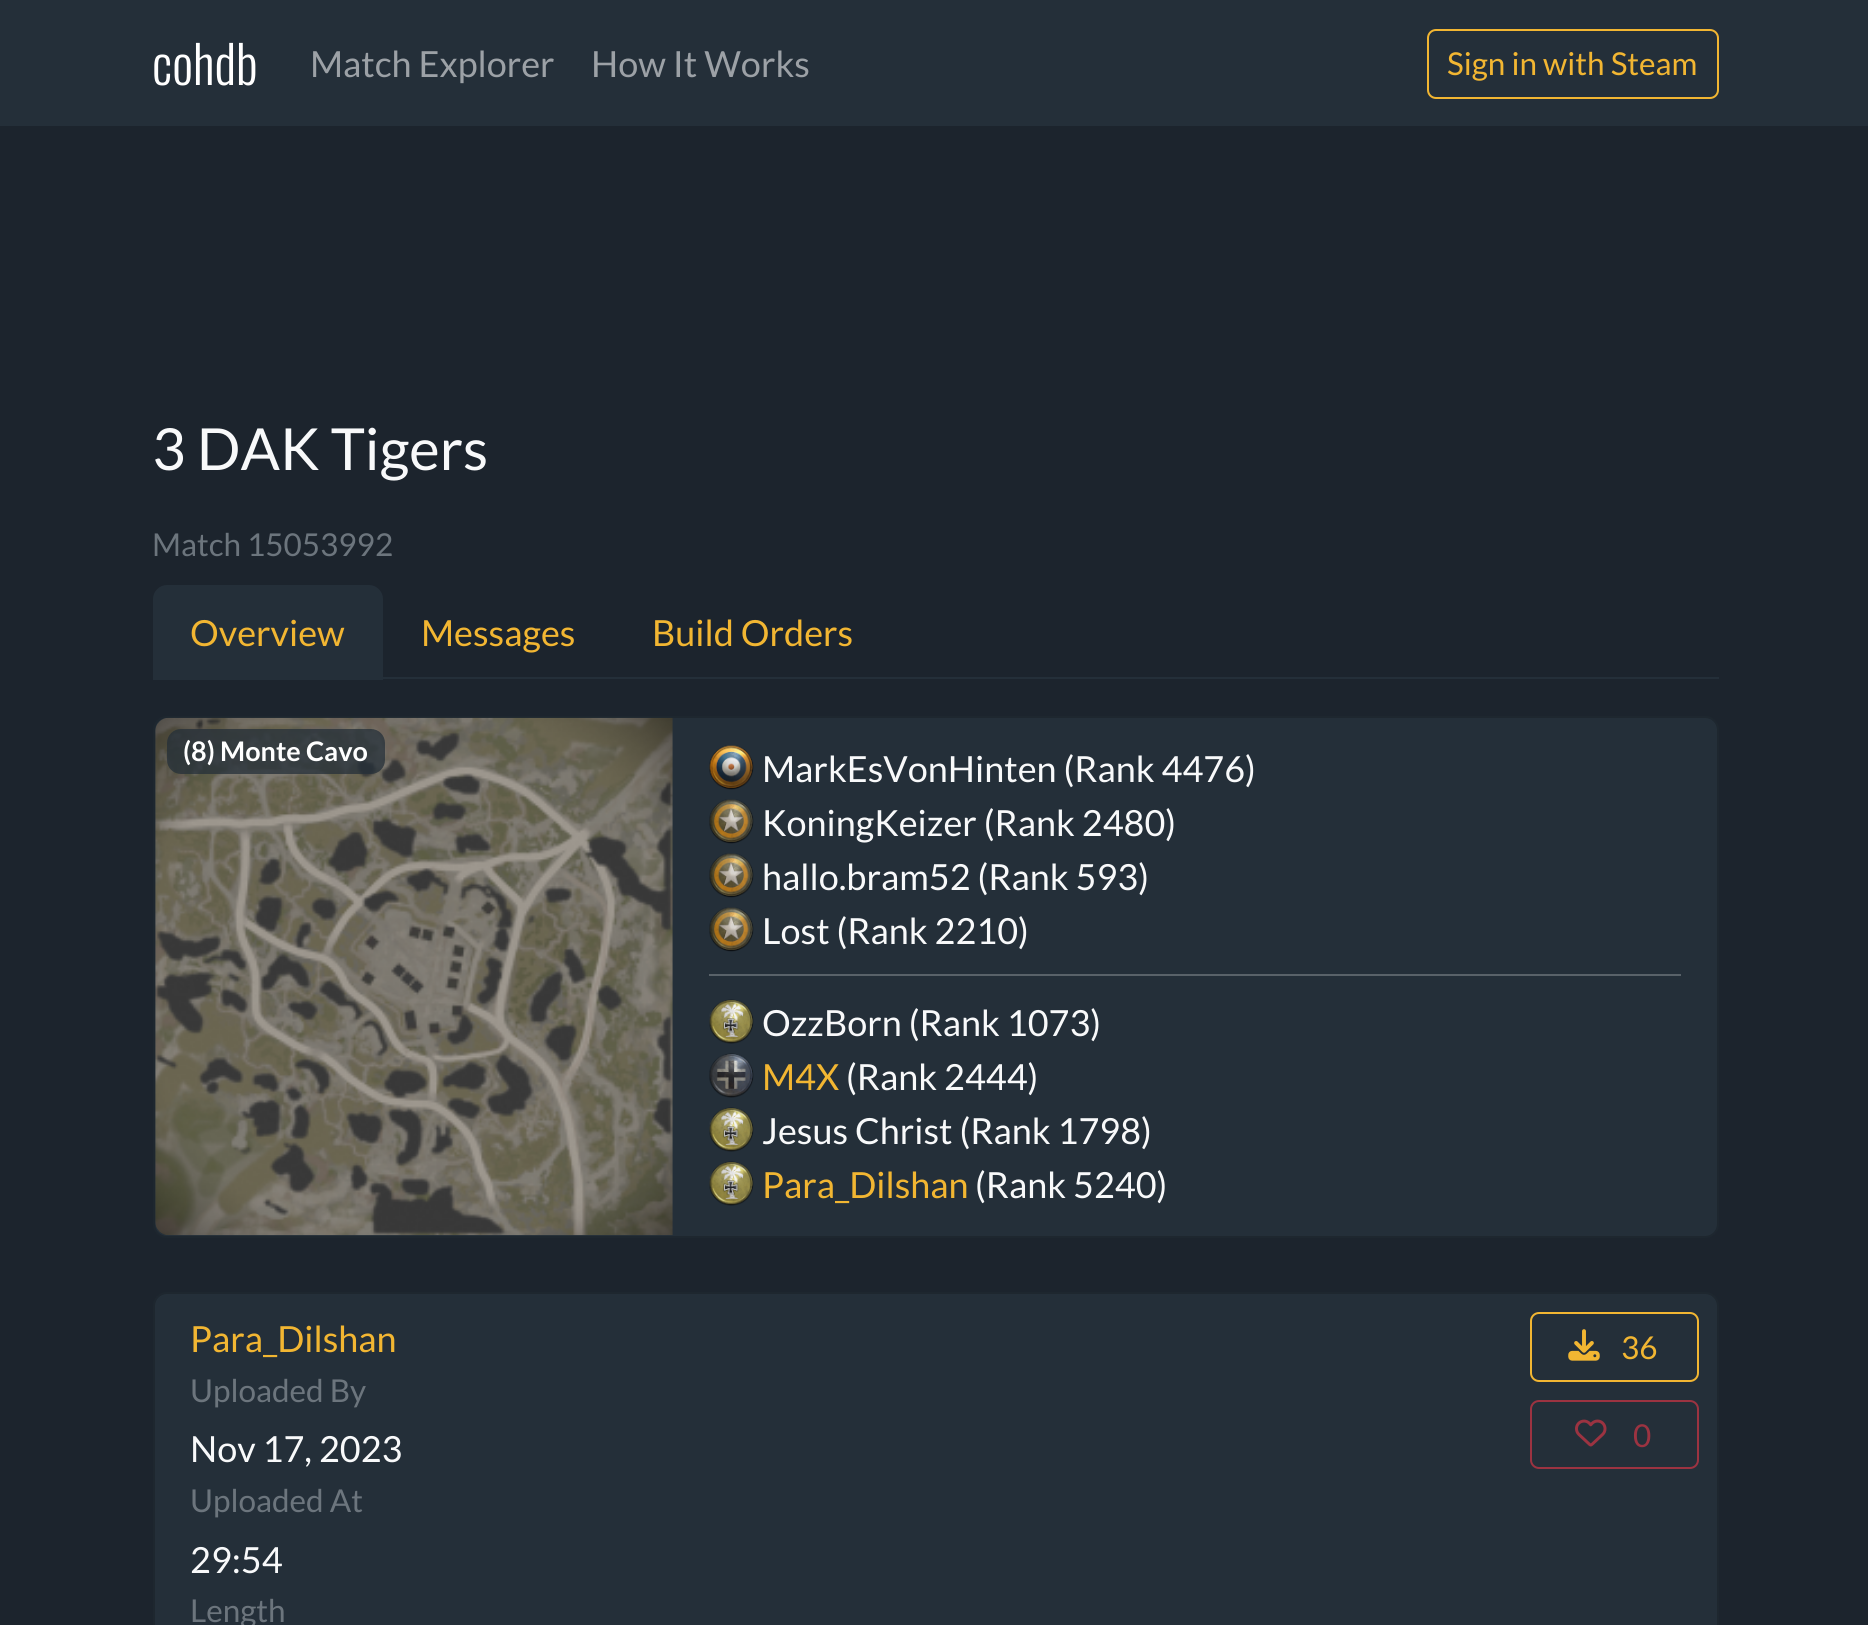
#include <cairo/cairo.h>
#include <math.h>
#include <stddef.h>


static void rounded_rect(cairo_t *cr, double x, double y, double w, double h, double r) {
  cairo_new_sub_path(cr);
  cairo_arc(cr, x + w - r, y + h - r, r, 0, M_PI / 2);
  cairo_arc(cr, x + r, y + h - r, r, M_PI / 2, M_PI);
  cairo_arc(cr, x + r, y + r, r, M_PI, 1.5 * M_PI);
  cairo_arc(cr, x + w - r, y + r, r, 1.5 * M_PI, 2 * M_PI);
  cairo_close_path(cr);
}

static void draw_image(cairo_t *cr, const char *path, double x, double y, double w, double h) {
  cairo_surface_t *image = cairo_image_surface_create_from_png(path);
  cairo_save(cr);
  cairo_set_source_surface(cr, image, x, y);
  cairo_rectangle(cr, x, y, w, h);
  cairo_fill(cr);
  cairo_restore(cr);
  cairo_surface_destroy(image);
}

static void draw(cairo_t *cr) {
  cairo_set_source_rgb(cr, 28 / 255.0, 36 / 255.0, 45 / 255.0);
  cairo_paint(cr);
  cairo_set_source_rgb(cr, 36 / 255.0, 47 / 255.0, 57 / 255.0);
  cairo_rectangle(cr, 0, 0, 1868, 126);
  cairo_fill(cr);
  rounded_rect(cr, 1428, 30, 290, 68, 8);
  cairo_set_source_rgb(cr, 242 / 255.0, 182 / 255.0, 50 / 255.0);
  cairo_stroke(cr);
  cairo_set_source_rgb(cr, 36 / 255.0, 47 / 255.0, 57 / 255.0);
  cairo_rectangle(cr, 383, 677, 1336, 2);
  cairo_fill(cr);
  cairo_new_path(cr);
  cairo_move_to(cr, 167, 586);
  cairo_line_to(cr, 369, 586);
  cairo_curve_to(cr, 376, 586, 382, 592, 382, 599);
  cairo_line_to(cr, 382, 679);
  cairo_line_to(cr, 154, 679);
  cairo_line_to(cr, 154, 599);
  cairo_curve_to(cr, 154, 592, 160, 586, 167, 586);
  cairo_close_path(cr);
  cairo_fill_preserve(cr);
  cairo_stroke(cr);
  rounded_rect(cr, 153, 716, 1566, 522, 14);
  cairo_fill(cr);
  rounded_rect(cr, 154, 717, 1564, 520, 13);
  cairo_set_source_rgba(cr, 0, 0, 0, 0.18);
  cairo_stroke(cr);
  draw_image(cr, "images/1.png", 155, 717, 518, 519);
  cairo_set_source_rgba(cr, 36 / 255.0, 47 / 255.0, 57 / 255.0, 0.75);
  rounded_rect(cr, 167, 729, 218, 45, 14);
  cairo_fill(cr);
  draw_image(cr, "images/2.png", 709, 745, 45, 45);
  draw_image(cr, "images/3.png", 709, 799, 45, 45);
  draw_image(cr, "images/4.png", 709, 853, 45, 45);
  draw_image(cr, "images/4.png", 709, 907, 45, 45);
  cairo_set_source_rgb(cr, 89 / 255.0, 98 / 255.0, 105 / 255.0);
  cairo_rectangle(cr, 709, 974, 972, 2);
  cairo_fill(cr);
  draw_image(cr, "images/5.png", 709, 999, 45, 45);
  draw_image(cr, "images/6.png", 709, 1053, 45, 45);
  draw_image(cr, "images/7.png", 709, 1107, 45, 45);
  draw_image(cr, "images/8.png", 709, 1161, 45, 45);
  cairo_set_source_rgb(cr, 36 / 255.0, 47 / 255.0, 57 / 255.0);
  rounded_rect(cr, 153, 1292, 1566, 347, 14);
  cairo_fill(cr);
  rounded_rect(cr, 154, 1293, 1564, 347, 13);
  cairo_set_source_rgba(cr, 0, 0, 0, 0.18);
  cairo_stroke(cr);
  rounded_rect(cr, 1531, 1313, 167, 68, 8);
  cairo_set_source_rgb(cr, 242 / 255.0, 182 / 255.0, 50 / 255.0);
  cairo_stroke(cr);
  draw_image(cr, "images/9.png", 1568, 1329, 32, 32);
  rounded_rect(cr, 1531, 1401, 167, 67, 8);
  cairo_set_source_rgb(cr, 156 / 255.0, 51 / 255.0, 65 / 255.0);
  cairo_stroke(cr);
  draw_image(cr, "images/10.png", 1575, 1419, 32, 28);
  cairo_select_font_face(cr, "Oswald Light", CAIRO_FONT_SLANT_NORMAL, CAIRO_FONT_WEIGHT_NORMAL);
  cairo_set_font_size(cr, 52);
  cairo_set_source_rgb(cr, 1, 1, 1);
  cairo_move_to(cr, 152, 85);
  cairo_show_text(cr, "cohdb");
  cairo_select_font_face(cr, "Lato", CAIRO_FONT_SLANT_NORMAL, CAIRO_FONT_WEIGHT_NORMAL);
  cairo_set_font_size(cr, 36);
  cairo_set_source_rgb(cr, 156 / 255.0, 161 / 255.0, 166 / 255.0);
  cairo_move_to(cr, 310, 77);
  cairo_show_text(cr, "Match Explorer");
  cairo_move_to(cr, 591, 77);
  cairo_show_text(cr, "How It Works");
  cairo_set_font_size(cr, 31.5);
  cairo_set_source_rgb(cr, 242 / 255.0, 182 / 255.0, 50 / 255.0);
  cairo_move_to(cr, 1447, 75);
  cairo_show_text(cr, "Sign in with Steam");
  cairo_set_font_size(cr, 58);
  cairo_set_source_rgb(cr, 248 / 255.0, 249 / 255.0, 250 / 255.0);
  cairo_move_to(cr, 152, 470);
  cairo_show_text(cr, "3 DAK Tigers");
  cairo_set_font_size(cr, 31.5);
  cairo_set_source_rgb(cr, 108 / 255.0, 117 / 255.0, 125 / 255.0);
  cairo_move_to(cr, 152, 556);
  cairo_show_text(cr, "Match 15053992");
  cairo_set_font_size(cr, 36);
  cairo_set_source_rgb(cr, 242 / 255.0, 182 / 255.0, 50 / 255.0);
  cairo_move_to(cr, 190, 646);
  cairo_show_text(cr, "Overview");
  cairo_move_to(cr, 421, 646);
  cairo_show_text(cr, "Messages");
  cairo_move_to(cr, 652, 646);
  cairo_show_text(cr, "Build Orders");
  cairo_select_font_face(cr, "Lato", CAIRO_FONT_SLANT_NORMAL, CAIRO_FONT_WEIGHT_BOLD);
  cairo_set_font_size(cr, 27);
  cairo_set_source_rgb(cr, 1, 1, 1);
  cairo_move_to(cr, 183, 761);
  cairo_show_text(cr, "(8) Monte Cavo");
  cairo_select_font_face(cr, "Lato", CAIRO_FONT_SLANT_NORMAL, CAIRO_FONT_WEIGHT_NORMAL);
  cairo_set_font_size(cr, 36);
  cairo_set_source_rgb(cr, 248 / 255.0, 249 / 255.0, 250 / 255.0);
  cairo_move_to(cr, 762, 782);
  cairo_show_text(cr, "MarkEsVonHinten (Rank 4476)");
  cairo_move_to(cr, 762, 836);
  cairo_show_text(cr, "KoningKeizer (Rank 2480)");
  cairo_move_to(cr, 762, 890);
  cairo_show_text(cr, "hallo.bram52 (Rank 593)");
  cairo_move_to(cr, 762, 944);
  cairo_show_text(cr, "Lost (Rank 2210)");
  cairo_move_to(cr, 762, 1036);
  cairo_show_text(cr, "OzzBorn (Rank 1073)");
  cairo_set_source_rgb(cr, 242 / 255.0, 182 / 255.0, 50 / 255.0);
  cairo_move_to(cr, 762, 1090);
  cairo_show_text(cr, "M4X");
  cairo_set_source_rgb(cr, 248 / 255.0, 249 / 255.0, 250 / 255.0);
  cairo_move_to(cr, 846, 1090);
  cairo_show_text(cr, "(Rank 2444)");
  cairo_move_to(cr, 762, 1144);
  cairo_show_text(cr, "Jesus Christ (Rank 1798)");
  cairo_set_source_rgb(cr, 242 / 255.0, 182 / 255.0, 50 / 255.0);
  cairo_move_to(cr, 762, 1198);
  cairo_show_text(cr, "Para_Dilshan");
  cairo_set_source_rgb(cr, 248 / 255.0, 249 / 255.0, 250 / 255.0);
  cairo_move_to(cr, 975, 1198);
  cairo_show_text(cr, "(Rank 5240)");
  cairo_set_source_rgb(cr, 242 / 255.0, 182 / 255.0, 50 / 255.0);
  cairo_move_to(cr, 190, 1352);
  cairo_show_text(cr, "Para_Dilshan");
  cairo_set_font_size(cr, 31.5);
  cairo_set_source_rgb(cr, 108 / 255.0, 117 / 255.0, 125 / 255.0);
  cairo_move_to(cr, 190, 1402);
  cairo_show_text(cr, "Uploaded By");
  cairo_set_font_size(cr, 36);
  cairo_set_source_rgb(cr, 248 / 255.0, 249 / 255.0, 250 / 255.0);
  cairo_move_to(cr, 190, 1462);
  cairo_show_text(cr, "Nov 17, 2023");
  cairo_set_font_size(cr, 31.5);
  cairo_set_source_rgb(cr, 108 / 255.0, 117 / 255.0, 125 / 255.0);
  cairo_move_to(cr, 190, 1512);
  cairo_show_text(cr, "Uploaded At");
  cairo_set_font_size(cr, 36);
  cairo_set_source_rgb(cr, 248 / 255.0, 249 / 255.0, 250 / 255.0);
  cairo_move_to(cr, 190, 1573);
  cairo_show_text(cr, "29:54");
  cairo_set_font_size(cr, 31.5);
  cairo_set_source_rgb(cr, 108 / 255.0, 117 / 255.0, 125 / 255.0);
  cairo_move_to(cr, 190, 1622);
  cairo_show_text(cr, "Length");
  cairo_set_source_rgb(cr, 242 / 255.0, 182 / 255.0, 50 / 255.0);
  cairo_move_to(cr, 1621, 1359);
  cairo_show_text(cr, "36");
  cairo_set_source_rgb(cr, 156 / 255.0, 51 / 255.0, 65 / 255.0);
  cairo_move_to(cr, 1633, 1447);
  cairo_show_text(cr, "0");
}

int main(void) {
  cairo_surface_t *surface = cairo_image_surface_create(CAIRO_FORMAT_RGB24, 1868, 1625);
  cairo_t *cr = cairo_create(surface);
  cairo_font_options_t *options = cairo_font_options_create();
  cairo_font_options_set_hint_metrics(options, CAIRO_HINT_METRICS_OFF);
  cairo_font_options_set_hint_style(options, CAIRO_HINT_STYLE_NONE);
  cairo_set_font_options(cr, options);
  cairo_set_miter_limit(cr, 4);
  draw(cr);
  cairo_surface_write_to_png(surface, "out.png");
  cairo_font_options_destroy(options);
  cairo_destroy(cr);
  cairo_surface_destroy(surface);
  return 0;
}
